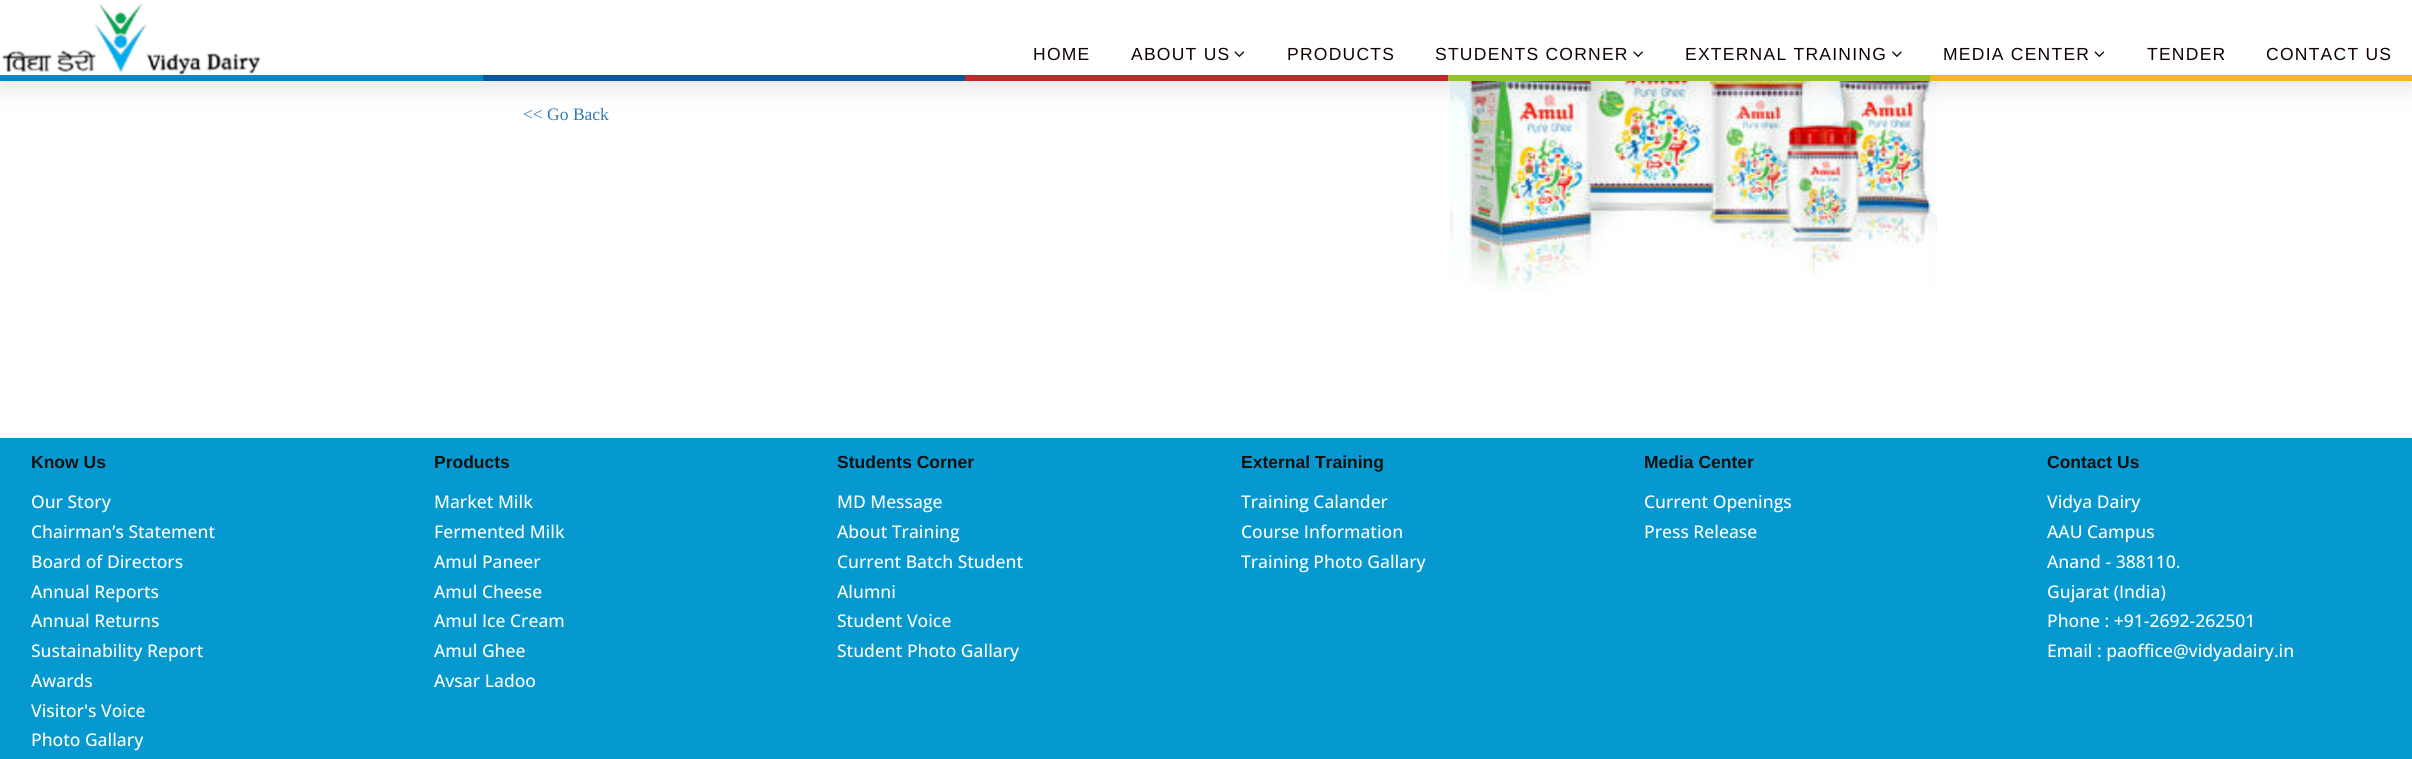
#include <cairo/cairo.h>
#include <math.h>
#include <stddef.h>


static void draw_spaced(cairo_t *cr, double x, double y, const char *s, double letter, double word) {
  cairo_move_to(cr, x, y);
  while (*s) {
    char ch[5] = {0};
    int n = 0;
    do ch[n++] = *s++; while ((*s & 0xC0) == 0x80);
    cairo_show_text(cr, ch);
    cairo_rel_move_to(cr, letter + word * (*ch == ' '), 0);
  }
}

static void rounded_rect(cairo_t *cr, double x, double y, double w, double h, double r) {
  cairo_new_sub_path(cr);
  cairo_arc(cr, x + w - r, y + h - r, r, 0, M_PI / 2);
  cairo_arc(cr, x + r, y + h - r, r, M_PI / 2, M_PI);
  cairo_arc(cr, x + r, y + r, r, M_PI, 1.5 * M_PI);
  cairo_arc(cr, x + w - r, y + r, r, 1.5 * M_PI, 2 * M_PI);
  cairo_close_path(cr);
}

static void draw_shadow(cairo_t *cr, double x, double y, double w, double h, double r, double blur, double alpha) {
  cairo_push_group_with_content(cr, CAIRO_CONTENT_ALPHA);
  cairo_set_operator(cr, CAIRO_OPERATOR_SOURCE);
  for (int i = 15; i >= -15 && fmin(w, h) + blur * i / 3 > 0; i -= 2) {
    double e = blur * i / 6;
    cairo_set_source_rgba(cr, 0, 0, 0, alpha * erfc((i - 1) / 8.5) / 2);
    rounded_rect(cr, x - e, y - e, w + 2 * e, h + 2 * e, fmax(0, fmin(r + e + blur * .6, fmin(w, h) / 2 + e)));
    cairo_fill(cr);
  }
  cairo_pattern_t *soft = cairo_pop_group(cr);
  cairo_mask(cr, soft);
  cairo_pattern_destroy(soft);
}

static void draw_image(cairo_t *cr, const char *path, double x, double y, double w, double h) {
  cairo_surface_t *image = cairo_image_surface_create_from_png(path);
  cairo_save(cr);
  cairo_set_source_surface(cr, image, x, y);
  cairo_rectangle(cr, x, y, w, h);
  cairo_fill(cr);
  cairo_restore(cr);
  cairo_surface_destroy(image);
}

static void draw(cairo_t *cr) {
  cairo_set_source_rgb(cr, 1, 1, 1);
  cairo_paint(cr);
  draw_image(cr, "images/5.png", 1450, 81, 488, 210);
  cairo_set_source_rgb(cr, 0, 0, 0);
  draw_shadow(cr, 0, 13, 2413, 76, 0, 12.5, 0.1);
  cairo_set_source_rgb(cr, 1, 1, 1);
  cairo_rectangle(cr, 0, 0, 2412, 75);
  cairo_fill(cr);
  draw_image(cr, "images/1.png", 2, 3, 262, 72);
  draw_image(cr, "images/2.png", 1234, 51, 11, 6);
  draw_image(cr, "images/3.png", 1633, 51, 10, 6);
  draw_image(cr, "images/4.png", 1892, 51, 10, 6);
  draw_image(cr, "images/2.png", 2094, 51, 11, 6);
  cairo_set_source_rgb(cr, 1 / 255.0, 137 / 255.0, 199 / 255.0);
  cairo_rectangle(cr, 0, 75, 483, 6);
  cairo_fill(cr);
  cairo_set_source_rgb(cr, 11 / 255.0, 85 / 255.0, 160 / 255.0);
  cairo_rectangle(cr, 483, 75, 482, 6);
  cairo_fill(cr);
  cairo_set_source_rgb(cr, 198 / 255.0, 40 / 255.0, 41 / 255.0);
  cairo_rectangle(cr, 965, 75, 483, 6);
  cairo_fill(cr);
  cairo_set_source_rgb(cr, 149 / 255.0, 193 / 255.0, 43 / 255.0);
  cairo_rectangle(cr, 1448, 75, 482, 6);
  cairo_fill(cr);
  cairo_set_source_rgb(cr, 248 / 255.0, 182 / 255.0, 27 / 255.0);
  cairo_rectangle(cr, 1930, 75, 482, 6);
  cairo_fill(cr);
  cairo_set_source_rgb(cr, 6 / 255.0, 153 / 255.0, 208 / 255.0);
  cairo_rectangle(cr, 0, 438, 2412, 321);
  cairo_fill(cr);
  cairo_select_font_face(cr, "Liberation Sans", CAIRO_FONT_SLANT_NORMAL, CAIRO_FONT_WEIGHT_NORMAL);
  cairo_set_font_size(cr, 17.5);
  cairo_set_source_rgb(cr, 16 / 255.0, 1 / 255.0, 1 / 255.0);
  draw_spaced(cr, 1033, 60, "HOME", 1.25, 0);
  draw_spaced(cr, 1131, 60, "ABOUT US", 1.25, 0);
  draw_spaced(cr, 1287, 60, "PRODUCTS", 1.25, 0);
  draw_spaced(cr, 1435, 60, "STUDENTS CORNER", 1.25, 0);
  draw_spaced(cr, 1685, 60, "EXTERNAL TRAINING", 1.25, 0);
  draw_spaced(cr, 1943, 60, "MEDIA CENTER", 1.25, 0);
  draw_spaced(cr, 2147, 60, "TENDER", 1.25, 0);
  draw_spaced(cr, 2266, 60, "CONTACT US", 1.25, 0);
  cairo_select_font_face(cr, "Liberation Serif", CAIRO_FONT_SLANT_NORMAL, CAIRO_FONT_WEIGHT_NORMAL);
  cairo_set_source_rgb(cr, 51 / 255.0, 122 / 255.0, 183 / 255.0);
  cairo_move_to(cr, 523, 120);
  cairo_show_text(cr, "<< Go Back");
  cairo_select_font_face(cr, "Liberation Sans", CAIRO_FONT_SLANT_NORMAL, CAIRO_FONT_WEIGHT_BOLD);
  cairo_set_source_rgb(cr, 17 / 255.0, 17 / 255.0, 17 / 255.0);
  cairo_move_to(cr, 31, 468);
  cairo_show_text(cr, "Know Us");
  cairo_select_font_face(cr, "Open Sans Medium", CAIRO_FONT_SLANT_NORMAL, CAIRO_FONT_WEIGHT_NORMAL);
  cairo_set_source_rgb(cr, 1, 1, 1);
  cairo_move_to(cr, 31, 508);
  cairo_show_text(cr, "Our Story");
  cairo_move_to(cr, 31, 538);
  cairo_show_text(cr, "Chairman’s Statement");
  cairo_move_to(cr, 31, 568);
  cairo_show_text(cr, "Board of Directors");
  cairo_move_to(cr, 31, 598);
  cairo_show_text(cr, "Annual Reports");
  cairo_move_to(cr, 31, 627);
  cairo_show_text(cr, "Annual Returns");
  cairo_move_to(cr, 31, 657);
  cairo_show_text(cr, "Sustainability Report");
  cairo_move_to(cr, 31, 687);
  cairo_show_text(cr, "Awards");
  cairo_move_to(cr, 31, 717);
  cairo_show_text(cr, "Visitor's Voice");
  cairo_move_to(cr, 31, 746);
  cairo_show_text(cr, "Photo Gallary");
  cairo_select_font_face(cr, "Liberation Sans", CAIRO_FONT_SLANT_NORMAL, CAIRO_FONT_WEIGHT_BOLD);
  cairo_set_source_rgb(cr, 17 / 255.0, 17 / 255.0, 17 / 255.0);
  cairo_move_to(cr, 434, 468);
  cairo_show_text(cr, "Products");
  cairo_select_font_face(cr, "Open Sans Medium", CAIRO_FONT_SLANT_NORMAL, CAIRO_FONT_WEIGHT_NORMAL);
  cairo_set_source_rgb(cr, 1, 1, 1);
  cairo_move_to(cr, 434, 508);
  cairo_show_text(cr, "Market Milk");
  cairo_move_to(cr, 434, 538);
  cairo_show_text(cr, "Fermented Milk");
  cairo_move_to(cr, 434, 568);
  cairo_show_text(cr, "Amul Paneer");
  cairo_move_to(cr, 434, 598);
  cairo_show_text(cr, "Amul Cheese");
  cairo_move_to(cr, 434, 627);
  cairo_show_text(cr, "Amul Ice Cream");
  cairo_move_to(cr, 434, 657);
  cairo_show_text(cr, "Amul Ghee");
  cairo_move_to(cr, 434, 687);
  cairo_show_text(cr, "Avsar Ladoo");
  cairo_select_font_face(cr, "Liberation Sans", CAIRO_FONT_SLANT_NORMAL, CAIRO_FONT_WEIGHT_BOLD);
  cairo_set_source_rgb(cr, 17 / 255.0, 17 / 255.0, 17 / 255.0);
  cairo_move_to(cr, 837, 468);
  cairo_show_text(cr, "Students Corner");
  cairo_select_font_face(cr, "Open Sans Medium", CAIRO_FONT_SLANT_NORMAL, CAIRO_FONT_WEIGHT_NORMAL);
  cairo_set_source_rgb(cr, 1, 1, 1);
  cairo_move_to(cr, 837, 508);
  cairo_show_text(cr, "MD Message");
  cairo_move_to(cr, 837, 538);
  cairo_show_text(cr, "About Training");
  cairo_move_to(cr, 837, 568);
  cairo_show_text(cr, "Current Batch Student");
  cairo_move_to(cr, 837, 598);
  cairo_show_text(cr, "Alumni");
  cairo_move_to(cr, 837, 627);
  cairo_show_text(cr, "Student Voice");
  cairo_move_to(cr, 837, 657);
  cairo_show_text(cr, "Student Photo Gallary");
  cairo_select_font_face(cr, "Liberation Sans", CAIRO_FONT_SLANT_NORMAL, CAIRO_FONT_WEIGHT_BOLD);
  cairo_set_source_rgb(cr, 17 / 255.0, 17 / 255.0, 17 / 255.0);
  cairo_move_to(cr, 1241, 468);
  cairo_show_text(cr, "External Training");
  cairo_select_font_face(cr, "Open Sans Medium", CAIRO_FONT_SLANT_NORMAL, CAIRO_FONT_WEIGHT_NORMAL);
  cairo_set_source_rgb(cr, 1, 1, 1);
  cairo_move_to(cr, 1241, 508);
  cairo_show_text(cr, "Training Calander");
  cairo_move_to(cr, 1241, 538);
  cairo_show_text(cr, "Course Information");
  cairo_move_to(cr, 1241, 568);
  cairo_show_text(cr, "Training Photo Gallary");
  cairo_select_font_face(cr, "Liberation Sans", CAIRO_FONT_SLANT_NORMAL, CAIRO_FONT_WEIGHT_BOLD);
  cairo_set_source_rgb(cr, 17 / 255.0, 17 / 255.0, 17 / 255.0);
  cairo_move_to(cr, 1644, 468);
  cairo_show_text(cr, "Media Center");
  cairo_select_font_face(cr, "Open Sans Medium", CAIRO_FONT_SLANT_NORMAL, CAIRO_FONT_WEIGHT_NORMAL);
  cairo_set_source_rgb(cr, 1, 1, 1);
  cairo_move_to(cr, 1644, 508);
  cairo_show_text(cr, "Current Openings");
  cairo_move_to(cr, 1644, 538);
  cairo_show_text(cr, "Press Release");
  cairo_select_font_face(cr, "Liberation Sans", CAIRO_FONT_SLANT_NORMAL, CAIRO_FONT_WEIGHT_BOLD);
  cairo_set_source_rgb(cr, 17 / 255.0, 17 / 255.0, 17 / 255.0);
  cairo_move_to(cr, 2047, 468);
  cairo_show_text(cr, "Contact Us");
  cairo_select_font_face(cr, "Open Sans Medium", CAIRO_FONT_SLANT_NORMAL, CAIRO_FONT_WEIGHT_NORMAL);
  cairo_set_source_rgb(cr, 1, 1, 1);
  cairo_move_to(cr, 2047, 508);
  cairo_show_text(cr, "Vidya Dairy");
  cairo_move_to(cr, 2047, 538);
  cairo_show_text(cr, "AAU Campus");
  cairo_move_to(cr, 2047, 568);
  cairo_show_text(cr, "Anand - 388110.");
  cairo_move_to(cr, 2047, 598);
  cairo_show_text(cr, "Gujarat (India)");
  cairo_move_to(cr, 2047, 627);
  cairo_show_text(cr, "Phone : +91-2692-262501");
  cairo_move_to(cr, 2047, 657);
  cairo_show_text(cr, "Email : paoffice@vidyadairy.in");
}

int main(void) {
  cairo_surface_t *surface = cairo_image_surface_create(CAIRO_FORMAT_RGB24, 2412, 759);
  cairo_t *cr = cairo_create(surface);
  cairo_font_options_t *options = cairo_font_options_create();
  cairo_font_options_set_hint_metrics(options, CAIRO_HINT_METRICS_OFF);
  cairo_font_options_set_hint_style(options, CAIRO_HINT_STYLE_NONE);
  cairo_set_font_options(cr, options);
  cairo_set_miter_limit(cr, 4);
  draw(cr);
  cairo_surface_write_to_png(surface, "out.png");
  cairo_font_options_destroy(options);
  cairo_destroy(cr);
  cairo_surface_destroy(surface);
  return 0;
}
